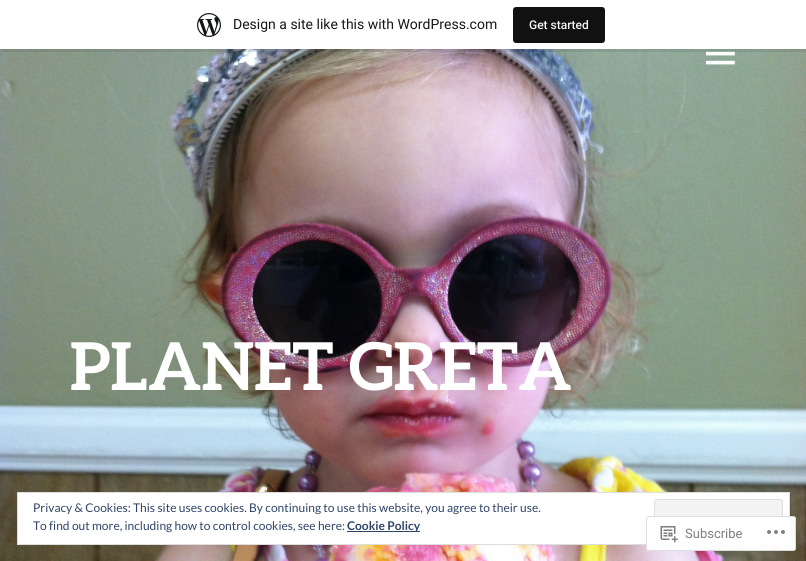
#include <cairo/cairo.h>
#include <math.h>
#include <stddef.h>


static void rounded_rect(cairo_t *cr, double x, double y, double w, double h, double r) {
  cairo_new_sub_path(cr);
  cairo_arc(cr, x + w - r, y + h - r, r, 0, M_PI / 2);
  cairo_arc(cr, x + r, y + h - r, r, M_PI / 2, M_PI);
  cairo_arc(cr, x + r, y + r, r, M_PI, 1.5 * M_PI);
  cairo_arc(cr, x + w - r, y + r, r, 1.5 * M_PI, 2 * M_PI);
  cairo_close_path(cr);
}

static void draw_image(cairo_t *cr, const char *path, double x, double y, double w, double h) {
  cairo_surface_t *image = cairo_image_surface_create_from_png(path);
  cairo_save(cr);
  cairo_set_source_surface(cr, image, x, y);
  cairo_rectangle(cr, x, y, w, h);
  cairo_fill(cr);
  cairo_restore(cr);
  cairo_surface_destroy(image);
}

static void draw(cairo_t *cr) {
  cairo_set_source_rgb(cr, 1, 1, 1);
  cairo_paint(cr);
  draw_image(cr, "images/3.png", 0, 49, 806, 512);
  cairo_set_source_rgba(cr, 0, 0, 0, 0.08);
  cairo_new_path(cr);
  cairo_move_to(cr, 1, 49);
  cairo_line_to(cr, 1, 52);
  cairo_line_to(cr, 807, 52);
  cairo_line_to(cr, 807, 3);
  cairo_line_to(cr, 806, 3);
  cairo_line_to(cr, 806, 49);
  cairo_close_path(cr);
  cairo_fill(cr);
  draw_image(cr, "images/1.png", 197, 13, 24, 24);
  cairo_set_source_rgb(cr, 17 / 255.0, 17 / 255.0, 17 / 255.0);
  rounded_rect(cr, 513, 7, 92, 36, 3);
  cairo_fill(cr);
  draw_image(cr, "images/2.png", 706, 51, 29, 14);
  cairo_set_source_rgb(cr, 1, 1, 1);
  cairo_rectangle(cr, 17.5, 492.5, 772, 52);
  cairo_fill_preserve(cr);
  cairo_set_source_rgb(cr, 222 / 255.0, 222 / 255.0, 222 / 255.0);
  cairo_set_line_width(cr, 1);
  cairo_stroke(cr);
  cairo_set_source_rgb(cr, 243 / 255.0, 243 / 255.0, 243 / 255.0);
  rounded_rect(cr, 654.5, 499.5, 128, 38, 2.5);
  cairo_fill_preserve(cr);
  cairo_set_source_rgb(cr, 222 / 255.0, 222 / 255.0, 222 / 255.0);
  cairo_stroke(cr);
  cairo_set_source_rgb(cr, 46 / 255.0, 68 / 255.0, 103 / 255.0);
  cairo_rectangle(cr, 347, 531, 73, 1);
  cairo_fill(cr);
  cairo_set_source_rgba(cr, 1, 1, 1, 0.98);
  rounded_rect(cr, 646, 516, 150, 35, 3);
  cairo_fill(cr);
  rounded_rect(cr, 646.5, 516.5, 149, 34, 2.5);
  cairo_set_source_rgba(cr, 220 / 255.0, 220 / 255.0, 222 / 255.0, 0.98);
  cairo_stroke(cr);
  draw_image(cr, "images/4.png", 660, 526, 18, 17);
  draw_image(cr, "images/5.png", 767, 530, 18, 4);
  cairo_select_font_face(cr, "Roboto", CAIRO_FONT_SLANT_NORMAL, CAIRO_FONT_WEIGHT_NORMAL);
  cairo_set_font_size(cr, 14);
  cairo_set_source_rgb(cr, 23 / 255.0, 23 / 255.0, 23 / 255.0);
  cairo_move_to(cr, 233, 29);
  cairo_show_text(cr, "Design a site like this with WordPress.com");
  cairo_select_font_face(cr, "Roboto Medium", CAIRO_FONT_SLANT_NORMAL, CAIRO_FONT_WEIGHT_NORMAL);
  cairo_set_font_size(cr, 12);
  cairo_set_source_rgb(cr, 246 / 255.0, 247 / 255.0, 247 / 255.0);
  cairo_move_to(cr, 529, 29);
  cairo_show_text(cr, "Get started");
  cairo_select_font_face(cr, "Aleo", CAIRO_FONT_SLANT_NORMAL, CAIRO_FONT_WEIGHT_BOLD);
  cairo_set_font_size(cr, 66);
  cairo_set_source_rgb(cr, 1, 1, 1);
  cairo_move_to(cr, 70, 390);
  cairo_show_text(cr, "PLANET GRETA");
  cairo_select_font_face(cr, "Lato", CAIRO_FONT_SLANT_NORMAL, CAIRO_FONT_WEIGHT_NORMAL);
  cairo_set_font_size(cr, 12);
  cairo_set_source_rgb(cr, 46 / 255.0, 68 / 255.0, 103 / 255.0);
  cairo_move_to(cr, 33, 512);
  cairo_show_text(cr, "Privacy & Cookies: This site uses cookies. By continuing to use this website, you agree to their use.");
  cairo_move_to(cr, 33, 530);
  cairo_show_text(cr, "To find out more, including how to control cookies, see here:");
  cairo_select_font_face(cr, "Lato", CAIRO_FONT_SLANT_NORMAL, CAIRO_FONT_WEIGHT_BOLD);
  cairo_move_to(cr, 347, 530);
  cairo_show_text(cr, "Cookie Policy");
  cairo_select_font_face(cr, "Roboto", CAIRO_FONT_SLANT_NORMAL, CAIRO_FONT_WEIGHT_NORMAL);
  cairo_set_font_size(cr, 13);
  cairo_set_source_rgb(cr, 123 / 255.0, 127 / 255.0, 132 / 255.0);
  cairo_move_to(cr, 685, 538);
  cairo_show_text(cr, "Subscribe");
}

int main(void) {
  cairo_surface_t *surface = cairo_image_surface_create(CAIRO_FORMAT_RGB24, 806, 561);
  cairo_t *cr = cairo_create(surface);
  cairo_font_options_t *options = cairo_font_options_create();
  cairo_font_options_set_hint_metrics(options, CAIRO_HINT_METRICS_OFF);
  cairo_font_options_set_hint_style(options, CAIRO_HINT_STYLE_NONE);
  cairo_set_font_options(cr, options);
  cairo_set_miter_limit(cr, 4);
  draw(cr);
  cairo_surface_write_to_png(surface, "out.png");
  cairo_font_options_destroy(options);
  cairo_destroy(cr);
  cairo_surface_destroy(surface);
  return 0;
}
